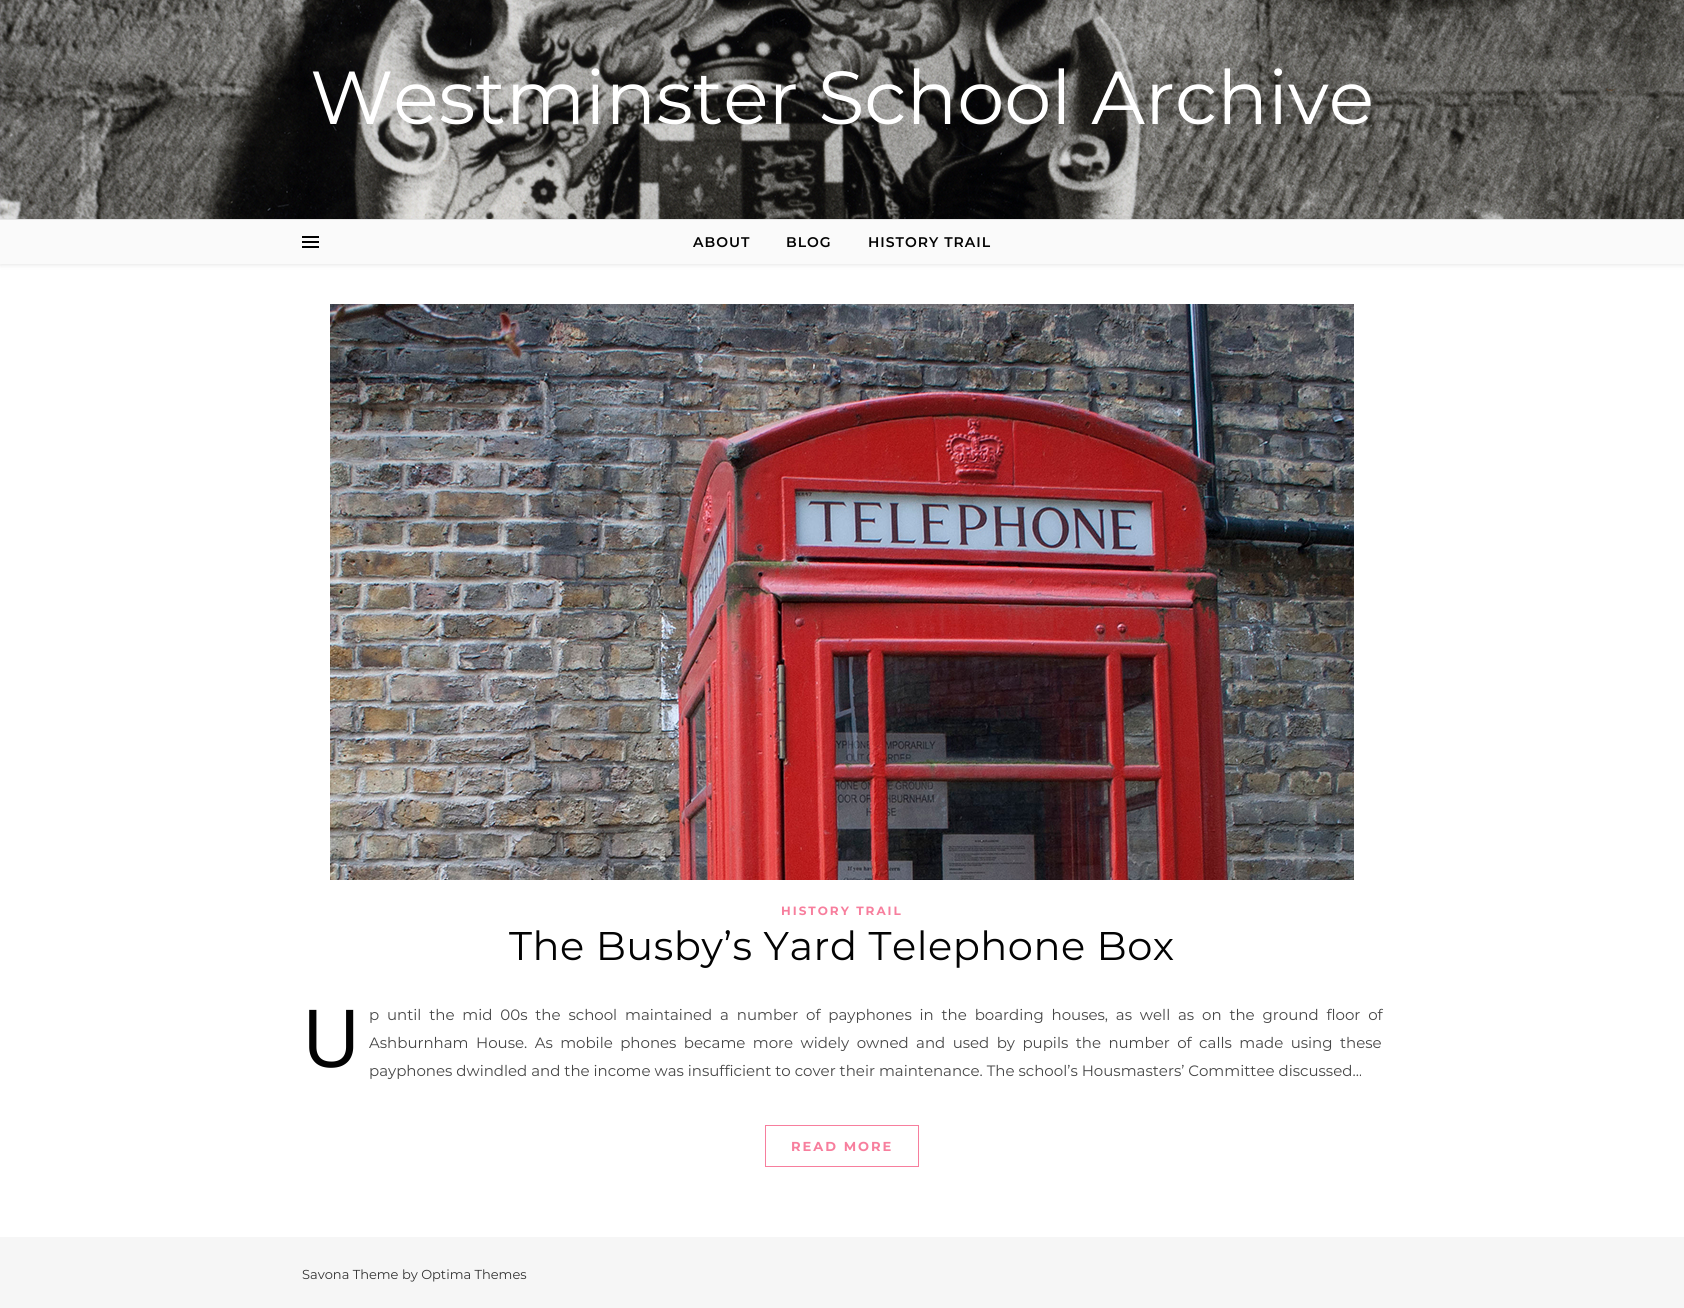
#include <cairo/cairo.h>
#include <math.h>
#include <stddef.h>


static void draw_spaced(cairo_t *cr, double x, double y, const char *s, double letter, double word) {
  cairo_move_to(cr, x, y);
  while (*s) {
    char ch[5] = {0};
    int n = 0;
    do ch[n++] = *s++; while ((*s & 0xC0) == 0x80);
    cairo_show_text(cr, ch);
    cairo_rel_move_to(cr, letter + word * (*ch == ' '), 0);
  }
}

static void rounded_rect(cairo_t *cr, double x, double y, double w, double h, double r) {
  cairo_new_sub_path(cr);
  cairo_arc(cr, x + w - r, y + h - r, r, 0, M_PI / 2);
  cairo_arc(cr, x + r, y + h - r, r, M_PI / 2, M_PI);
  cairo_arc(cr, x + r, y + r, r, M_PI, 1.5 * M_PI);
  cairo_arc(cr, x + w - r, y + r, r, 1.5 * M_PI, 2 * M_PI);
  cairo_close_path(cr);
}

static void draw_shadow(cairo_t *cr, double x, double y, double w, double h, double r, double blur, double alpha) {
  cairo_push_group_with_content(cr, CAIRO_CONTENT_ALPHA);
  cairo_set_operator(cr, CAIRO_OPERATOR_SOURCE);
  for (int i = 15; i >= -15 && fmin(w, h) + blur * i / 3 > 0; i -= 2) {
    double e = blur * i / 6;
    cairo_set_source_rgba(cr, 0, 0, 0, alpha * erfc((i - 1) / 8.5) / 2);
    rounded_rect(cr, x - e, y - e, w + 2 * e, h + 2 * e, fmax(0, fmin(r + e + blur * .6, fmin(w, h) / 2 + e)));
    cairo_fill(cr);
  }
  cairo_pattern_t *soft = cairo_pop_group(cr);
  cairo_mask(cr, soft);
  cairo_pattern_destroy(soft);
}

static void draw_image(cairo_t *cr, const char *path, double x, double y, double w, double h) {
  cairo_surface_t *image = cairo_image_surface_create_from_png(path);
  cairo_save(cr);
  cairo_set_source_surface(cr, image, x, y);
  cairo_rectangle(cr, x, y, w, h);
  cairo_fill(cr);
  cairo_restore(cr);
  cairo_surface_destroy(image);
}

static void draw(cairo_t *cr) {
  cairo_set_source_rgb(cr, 1, 1, 1);
  cairo_paint(cr);
  draw_image(cr, "images/1.png", 0, 0, 1684, 219);
  cairo_set_source_rgb(cr, 235 / 255.0, 235 / 255.0, 235 / 255.0);
  cairo_rectangle(cr, 0, 219, 1684, 1);
  cairo_fill(cr);
  cairo_set_source_rgb(cr, 0, 0, 0);
  draw_shadow(cr, 0, 221, 1684, 44, 0, 2.5, 0.1);
  cairo_set_source_rgb(cr, 250 / 255.0, 250 / 255.0, 250 / 255.0);
  cairo_rectangle(cr, 0, 220, 1684, 44);
  cairo_fill(cr);
  cairo_set_source_rgb(cr, 0, 0, 0);
  cairo_rectangle(cr, 302, 236, 17, 2);
  cairo_fill(cr);
  cairo_rectangle(cr, 302, 241, 17, 2);
  cairo_fill(cr);
  cairo_rectangle(cr, 302, 246, 17, 2);
  cairo_fill(cr);
  draw_image(cr, "images/2.png", 330, 304, 1024, 576);
  cairo_rectangle(cr, 765.5, 1125.5, 153, 41);
  cairo_set_source_rgb(cr, 247 / 255.0, 126 / 255.0, 157 / 255.0);
  cairo_set_line_width(cr, 1);
  cairo_stroke(cr);
  cairo_set_source_rgb(cr, 246 / 255.0, 246 / 255.0, 246 / 255.0);
  cairo_rectangle(cr, 0, 1237, 1684, 71);
  cairo_fill(cr);
  cairo_select_font_face(cr, "Montserrat", CAIRO_FONT_SLANT_NORMAL, CAIRO_FONT_WEIGHT_NORMAL);
  cairo_set_font_size(cr, 75);
  cairo_set_source_rgb(cr, 1, 1, 1);
  cairo_move_to(cr, 310, 124);
  cairo_show_text(cr, "Westminster School Archive");
  cairo_select_font_face(cr, "Montserrat SemiBold", CAIRO_FONT_SLANT_NORMAL, CAIRO_FONT_WEIGHT_NORMAL);
  cairo_set_font_size(cr, 14);
  cairo_set_source_rgb(cr, 3 / 255.0, 3 / 255.0, 3 / 255.0);
  draw_spaced(cr, 693, 247, "ABOUT", 1, 0);
  draw_spaced(cr, 786, 247, "BLOG", 1, 0);
  draw_spaced(cr, 868, 247, "HISTORY TRAIL", 1, 0);
  cairo_select_font_face(cr, "Montserrat", CAIRO_FONT_SLANT_NORMAL, CAIRO_FONT_WEIGHT_BOLD);
  cairo_set_font_size(cr, 12);
  cairo_set_source_rgb(cr, 247 / 255.0, 126 / 255.0, 157 / 255.0);
  draw_spaced(cr, 781, 915, "HISTORY TRAIL", 2, 0);
  cairo_select_font_face(cr, "Montserrat", CAIRO_FONT_SLANT_NORMAL, CAIRO_FONT_WEIGHT_NORMAL);
  cairo_set_font_size(cr, 40);
  cairo_set_source_rgb(cr, 3 / 255.0, 3 / 255.0, 3 / 255.0);
  draw_spaced(cr, 509, 960, "The Busby’s Yard Telephone Box", 0.5, 0);
  cairo_select_font_face(cr, "Noto Sans", CAIRO_FONT_SLANT_NORMAL, CAIRO_FONT_WEIGHT_NORMAL);
  cairo_set_font_size(cr, 80);
  cairo_move_to(cr, 302, 1067);
  cairo_show_text(cr, "U");
  cairo_select_font_face(cr, "Montserrat", CAIRO_FONT_SLANT_NORMAL, CAIRO_FONT_WEIGHT_NORMAL);
  cairo_set_font_size(cr, 15);
  cairo_set_source_rgb(cr, 70 / 255.0, 70 / 255.0, 70 / 255.0);
  draw_spaced(cr, 369, 1020, "p until the mid 00s the school maintained a number of payphones in the boarding houses, as well as on the ground floor of", 0, 3.9);
  draw_spaced(cr, 369, 1048, "Ashburnham House. As mobile phones became more widely owned and used by pupils the number of calls made using these", 0, 3.5);
  cairo_move_to(cr, 369, 1076);
  cairo_show_text(cr, "payphones dwindled and the income was insufficient to cover their maintenance. The school’s Housmasters’ Committee discussed…");
  cairo_select_font_face(cr, "Montserrat", CAIRO_FONT_SLANT_NORMAL, CAIRO_FONT_WEIGHT_BOLD);
  cairo_set_font_size(cr, 13);
  cairo_set_source_rgb(cr, 247 / 255.0, 126 / 255.0, 157 / 255.0);
  draw_spaced(cr, 791, 1151, "READ MORE", 2, 0);
  cairo_select_font_face(cr, "Montserrat", CAIRO_FONT_SLANT_NORMAL, CAIRO_FONT_WEIGHT_NORMAL);
  cairo_set_source_rgb(cr, 51 / 255.0, 51 / 255.0, 51 / 255.0);
  cairo_move_to(cr, 302, 1279);
  cairo_show_text(cr, "Savona Theme by Optima Themes");
}

int main(void) {
  cairo_surface_t *surface = cairo_image_surface_create(CAIRO_FORMAT_RGB24, 1684, 1308);
  cairo_t *cr = cairo_create(surface);
  cairo_font_options_t *options = cairo_font_options_create();
  cairo_font_options_set_hint_metrics(options, CAIRO_HINT_METRICS_OFF);
  cairo_font_options_set_hint_style(options, CAIRO_HINT_STYLE_NONE);
  cairo_set_font_options(cr, options);
  cairo_set_miter_limit(cr, 4);
  draw(cr);
  cairo_surface_write_to_png(surface, "out.png");
  cairo_font_options_destroy(options);
  cairo_destroy(cr);
  cairo_surface_destroy(surface);
  return 0;
}
